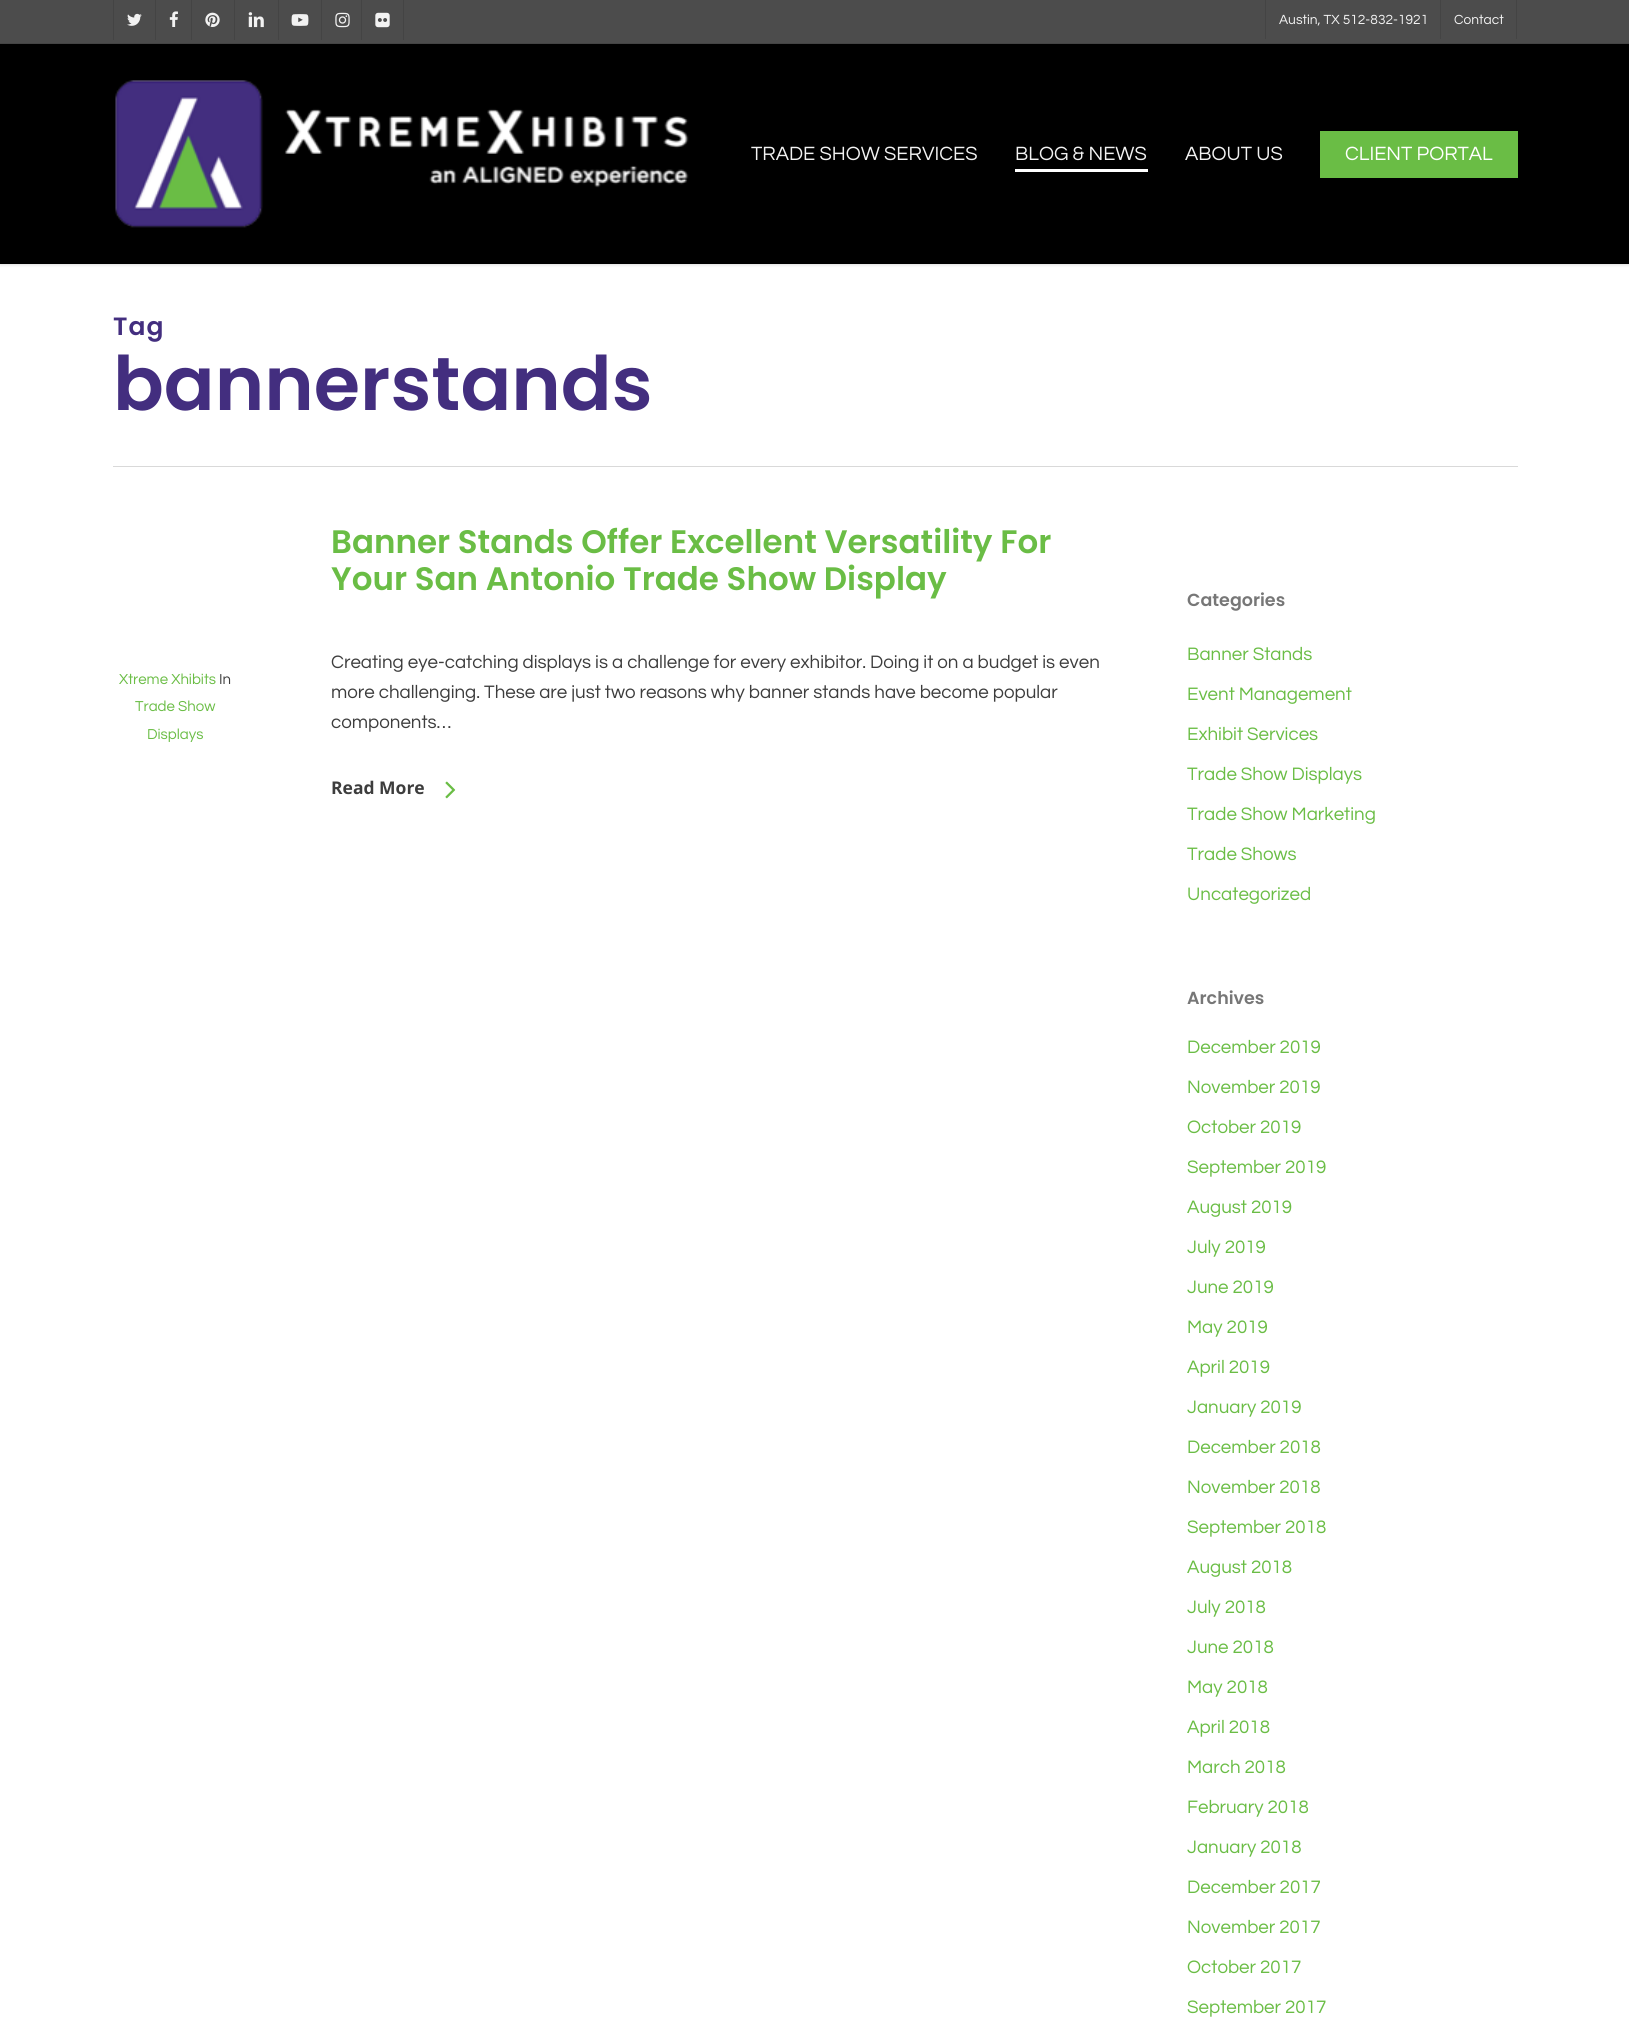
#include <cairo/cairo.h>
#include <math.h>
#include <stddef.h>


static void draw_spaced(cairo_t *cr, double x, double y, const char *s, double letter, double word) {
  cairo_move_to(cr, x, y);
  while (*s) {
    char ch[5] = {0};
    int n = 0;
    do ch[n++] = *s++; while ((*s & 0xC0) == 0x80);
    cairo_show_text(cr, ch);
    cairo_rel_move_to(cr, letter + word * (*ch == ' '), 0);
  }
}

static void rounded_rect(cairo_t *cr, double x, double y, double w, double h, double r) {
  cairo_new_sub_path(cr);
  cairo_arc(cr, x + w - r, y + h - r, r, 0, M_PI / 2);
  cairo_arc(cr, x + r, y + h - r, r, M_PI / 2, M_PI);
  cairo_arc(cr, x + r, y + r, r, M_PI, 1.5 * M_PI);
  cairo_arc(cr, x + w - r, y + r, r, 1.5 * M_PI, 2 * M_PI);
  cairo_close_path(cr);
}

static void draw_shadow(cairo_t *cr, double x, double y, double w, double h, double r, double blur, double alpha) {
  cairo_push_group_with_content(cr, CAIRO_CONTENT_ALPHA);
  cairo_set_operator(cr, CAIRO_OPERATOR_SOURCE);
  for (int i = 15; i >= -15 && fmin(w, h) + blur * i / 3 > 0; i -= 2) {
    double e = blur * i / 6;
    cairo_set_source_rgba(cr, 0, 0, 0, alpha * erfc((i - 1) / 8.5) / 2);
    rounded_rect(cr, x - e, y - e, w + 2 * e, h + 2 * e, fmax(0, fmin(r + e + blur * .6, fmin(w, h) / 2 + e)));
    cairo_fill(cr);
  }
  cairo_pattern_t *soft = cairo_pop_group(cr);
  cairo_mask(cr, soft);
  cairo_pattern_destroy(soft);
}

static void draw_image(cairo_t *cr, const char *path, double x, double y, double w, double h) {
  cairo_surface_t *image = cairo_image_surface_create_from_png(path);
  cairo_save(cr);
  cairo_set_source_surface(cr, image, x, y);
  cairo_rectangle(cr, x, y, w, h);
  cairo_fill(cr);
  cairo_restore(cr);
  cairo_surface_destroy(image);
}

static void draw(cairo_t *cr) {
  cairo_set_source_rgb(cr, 1, 1, 1);
  cairo_paint(cr);
  cairo_set_source_rgb(cr, 0, 0, 0);
  draw_shadow(cr, 0, 0, 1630, 264, 0, 2, 0.22);
  cairo_set_source_rgb(cr, 0, 0, 0);
  cairo_rectangle(cr, 0, 44, 1629, 220);
  cairo_fill(cr);
  cairo_set_source_rgb(cr, 76 / 255.0, 76 / 255.0, 76 / 255.0);
  cairo_rectangle(cr, 0, 0, 1629, 43);
  cairo_fill(cr);
  cairo_set_source_rgb(cr, 68 / 255.0, 68 / 255.0, 68 / 255.0);
  cairo_rectangle(cr, 0, 43, 1629, 1);
  cairo_fill(cr);
  cairo_rectangle(cr, 113, 0, 1, 40);
  cairo_fill(cr);
  draw_image(cr, "images/1.png", 127, 13, 15, 13);
  cairo_rectangle(cr, 155, 0, 1, 40);
  cairo_fill(cr);
  draw_image(cr, "images/2.png", 169, 11, 9, 16);
  cairo_rectangle(cr, 191, 0, 1, 40);
  cairo_fill(cr);
  draw_image(cr, "images/3.png", 205, 12, 15, 15);
  cairo_rectangle(cr, 234, 0, 1, 40);
  cairo_fill(cr);
  draw_image(cr, "images/4.png", 248, 12, 16, 16);
  cairo_rectangle(cr, 278, 0, 1, 40);
  cairo_fill(cr);
  draw_image(cr, "images/5.png", 291, 14, 18, 12);
  cairo_rectangle(cr, 321, 0, 1, 40);
  cairo_fill(cr);
  draw_image(cr, "images/6.png", 335, 12, 15, 16);
  cairo_rectangle(cr, 403, 0, 1, 40);
  cairo_fill(cr);
  cairo_rectangle(cr, 361, 0, 1, 40);
  cairo_fill(cr);
  draw_image(cr, "images/7.png", 375, 12, 15, 16);
  cairo_rectangle(cr, 1265, 0, 1, 39);
  cairo_fill(cr);
  cairo_rectangle(cr, 1516, 0, 1, 39);
  cairo_fill(cr);
  cairo_rectangle(cr, 1440, 0, 1, 39);
  cairo_fill(cr);
  draw_image(cr, "images/8.png", 115, 80, 574, 148);
  cairo_set_source_rgb(cr, 1, 1, 1);
  cairo_rectangle(cr, 1015, 169, 133, 3);
  cairo_fill(cr);
  cairo_set_source_rgb(cr, 106 / 255.0, 189 / 255.0, 69 / 255.0);
  cairo_rectangle(cr, 1320, 131, 198, 47);
  cairo_fill(cr);
  cairo_set_source_rgb(cr, 217 / 255.0, 217 / 255.0, 217 / 255.0);
  cairo_rectangle(cr, 113, 466, 1405, 1);
  cairo_fill(cr);
  draw_image(cr, "images/9.png", 445, 781, 11, 18);
  cairo_select_font_face(cr, "Questrial", CAIRO_FONT_SLANT_NORMAL, CAIRO_FONT_WEIGHT_NORMAL);
  cairo_set_font_size(cr, 13.75);
  cairo_set_source_rgb(cr, 242 / 255.0, 242 / 255.0, 242 / 255.0);
  cairo_move_to(cr, 1279, 24);
  cairo_show_text(cr, "Austin, TX 512-832-1921");
  cairo_move_to(cr, 1454, 24);
  cairo_show_text(cr, "Contact");
  cairo_set_font_size(cr, 20);
  cairo_move_to(cr, 751, 160);
  cairo_show_text(cr, "TRADE SHOW SERVICES");
  cairo_move_to(cr, 1015, 160);
  cairo_show_text(cr, "BLOG & NEWS");
  cairo_move_to(cr, 1185, 160);
  cairo_show_text(cr, "ABOUT US");
  cairo_set_source_rgb(cr, 1, 1, 1);
  cairo_move_to(cr, 1345, 160);
  cairo_show_text(cr, "CLIENT PORTAL");
  cairo_select_font_face(cr, "Poppins SemiBold", CAIRO_FONT_SLANT_NORMAL, CAIRO_FONT_WEIGHT_NORMAL);
  cairo_set_font_size(cr, 25);
  cairo_set_source_rgb(cr, 67 / 255.0, 46 / 255.0, 127 / 255.0);
  draw_spaced(cr, 113, 335, "Tag", 1, 0);
  cairo_set_font_size(cr, 75);
  cairo_move_to(cr, 113, 410);
  cairo_show_text(cr, "bannerstands");
  cairo_select_font_face(cr, "Questrial", CAIRO_FONT_SLANT_NORMAL, CAIRO_FONT_WEIGHT_NORMAL);
  cairo_set_font_size(cr, 15);
  cairo_set_source_rgb(cr, 106 / 255.0, 189 / 255.0, 69 / 255.0);
  cairo_move_to(cr, 119, 684);
  cairo_show_text(cr, "Xtreme Xhibits");
  cairo_set_source_rgb(cr, 61 / 255.0, 61 / 255.0, 61 / 255.0);
  cairo_move_to(cr, 219, 684);
  cairo_show_text(cr, "In");
  cairo_set_source_rgb(cr, 106 / 255.0, 189 / 255.0, 69 / 255.0);
  cairo_move_to(cr, 135, 711);
  cairo_show_text(cr, "Trade Show");
  cairo_move_to(cr, 147, 739);
  cairo_show_text(cr, "Displays");
  cairo_select_font_face(cr, "Poppins SemiBold", CAIRO_FONT_SLANT_NORMAL, CAIRO_FONT_WEIGHT_NORMAL);
  cairo_set_font_size(cr, 32.5);
  cairo_move_to(cr, 331, 553);
  cairo_show_text(cr, "Banner Stands Offer Excellent Versatility For");
  cairo_move_to(cr, 331, 590);
  cairo_show_text(cr, "Your San Antonio Trade Show Display");
  cairo_select_font_face(cr, "Questrial", CAIRO_FONT_SLANT_NORMAL, CAIRO_FONT_WEIGHT_NORMAL);
  cairo_set_font_size(cr, 18.75);
  cairo_set_source_rgb(cr, 61 / 255.0, 61 / 255.0, 61 / 255.0);
  cairo_move_to(cr, 331, 668);
  cairo_show_text(cr, "Creating eye-catching displays is a challenge for every exhibitor. Doing it on a budget is even");
  cairo_move_to(cr, 331, 698);
  cairo_show_text(cr, "more challenging. These are just two reasons why banner stands have become popular");
  cairo_move_to(cr, 331, 728);
  cairo_show_text(cr, "components…");
  cairo_select_font_face(cr, "Open Sans", CAIRO_FONT_SLANT_NORMAL, CAIRO_FONT_WEIGHT_BOLD);
  cairo_set_font_size(cr, 17.5);
  cairo_move_to(cr, 331, 794);
  cairo_show_text(cr, "Read More");
  cairo_select_font_face(cr, "Poppins SemiBold", CAIRO_FONT_SLANT_NORMAL, CAIRO_FONT_WEIGHT_NORMAL);
  cairo_set_source_rgb(cr, 119 / 255.0, 119 / 255.0, 119 / 255.0);
  cairo_move_to(cr, 1187, 606);
  cairo_show_text(cr, "Categories");
  cairo_select_font_face(cr, "Questrial", CAIRO_FONT_SLANT_NORMAL, CAIRO_FONT_WEIGHT_NORMAL);
  cairo_set_font_size(cr, 18.75);
  cairo_set_source_rgb(cr, 106 / 255.0, 189 / 255.0, 69 / 255.0);
  cairo_move_to(cr, 1187, 660);
  cairo_show_text(cr, "Banner Stands");
  cairo_move_to(cr, 1187, 700);
  cairo_show_text(cr, "Event Management");
  cairo_move_to(cr, 1187, 740);
  cairo_show_text(cr, "Exhibit Services");
  cairo_move_to(cr, 1187, 780);
  cairo_show_text(cr, "Trade Show Displays");
  cairo_move_to(cr, 1187, 820);
  cairo_show_text(cr, "Trade Show Marketing");
  cairo_move_to(cr, 1187, 860);
  cairo_show_text(cr, "Trade Shows");
  cairo_move_to(cr, 1187, 900);
  cairo_show_text(cr, "Uncategorized");
  cairo_select_font_face(cr, "Poppins SemiBold", CAIRO_FONT_SLANT_NORMAL, CAIRO_FONT_WEIGHT_NORMAL);
  cairo_set_font_size(cr, 17.5);
  cairo_set_source_rgb(cr, 119 / 255.0, 119 / 255.0, 119 / 255.0);
  cairo_move_to(cr, 1187, 1004);
  cairo_show_text(cr, "Archives");
  cairo_select_font_face(cr, "Questrial", CAIRO_FONT_SLANT_NORMAL, CAIRO_FONT_WEIGHT_NORMAL);
  cairo_set_font_size(cr, 18.75);
  cairo_set_source_rgb(cr, 106 / 255.0, 189 / 255.0, 69 / 255.0);
  cairo_move_to(cr, 1187, 1053);
  cairo_show_text(cr, "December 2019");
  cairo_move_to(cr, 1187, 1093);
  cairo_show_text(cr, "November 2019");
  cairo_move_to(cr, 1187, 1133);
  cairo_show_text(cr, "October 2019");
  cairo_move_to(cr, 1187, 1173);
  cairo_show_text(cr, "September 2019");
  cairo_move_to(cr, 1187, 1213);
  cairo_show_text(cr, "August 2019");
  cairo_move_to(cr, 1187, 1253);
  cairo_show_text(cr, "July 2019");
  cairo_move_to(cr, 1187, 1293);
  cairo_show_text(cr, "June 2019");
  cairo_move_to(cr, 1187, 1333);
  cairo_show_text(cr, "May 2019");
  cairo_move_to(cr, 1187, 1373);
  cairo_show_text(cr, "April 2019");
  cairo_move_to(cr, 1187, 1413);
  cairo_show_text(cr, "January 2019");
  cairo_move_to(cr, 1187, 1453);
  cairo_show_text(cr, "December 2018");
  cairo_move_to(cr, 1187, 1493);
  cairo_show_text(cr, "November 2018");
  cairo_move_to(cr, 1187, 1533);
  cairo_show_text(cr, "September 2018");
  cairo_move_to(cr, 1187, 1573);
  cairo_show_text(cr, "August 2018");
  cairo_move_to(cr, 1187, 1613);
  cairo_show_text(cr, "July 2018");
  cairo_move_to(cr, 1187, 1653);
  cairo_show_text(cr, "June 2018");
  cairo_move_to(cr, 1187, 1693);
  cairo_show_text(cr, "May 2018");
  cairo_move_to(cr, 1187, 1733);
  cairo_show_text(cr, "April 2018");
  cairo_move_to(cr, 1187, 1773);
  cairo_show_text(cr, "March 2018");
  cairo_move_to(cr, 1187, 1813);
  cairo_show_text(cr, "February 2018");
  cairo_move_to(cr, 1187, 1853);
  cairo_show_text(cr, "January 2018");
  cairo_move_to(cr, 1187, 1893);
  cairo_show_text(cr, "December 2017");
  cairo_move_to(cr, 1187, 1933);
  cairo_show_text(cr, "November 2017");
  cairo_move_to(cr, 1187, 1973);
  cairo_show_text(cr, "October 2017");
  cairo_move_to(cr, 1187, 2013);
  cairo_show_text(cr, "September 2017");
}

int main(void) {
  cairo_surface_t *surface = cairo_image_surface_create(CAIRO_FORMAT_RGB24, 1629, 2034);
  cairo_t *cr = cairo_create(surface);
  cairo_font_options_t *options = cairo_font_options_create();
  cairo_font_options_set_hint_metrics(options, CAIRO_HINT_METRICS_OFF);
  cairo_font_options_set_hint_style(options, CAIRO_HINT_STYLE_NONE);
  cairo_set_font_options(cr, options);
  cairo_set_miter_limit(cr, 4);
  draw(cr);
  cairo_surface_write_to_png(surface, "out.png");
  cairo_font_options_destroy(options);
  cairo_destroy(cr);
  cairo_surface_destroy(surface);
  return 0;
}
